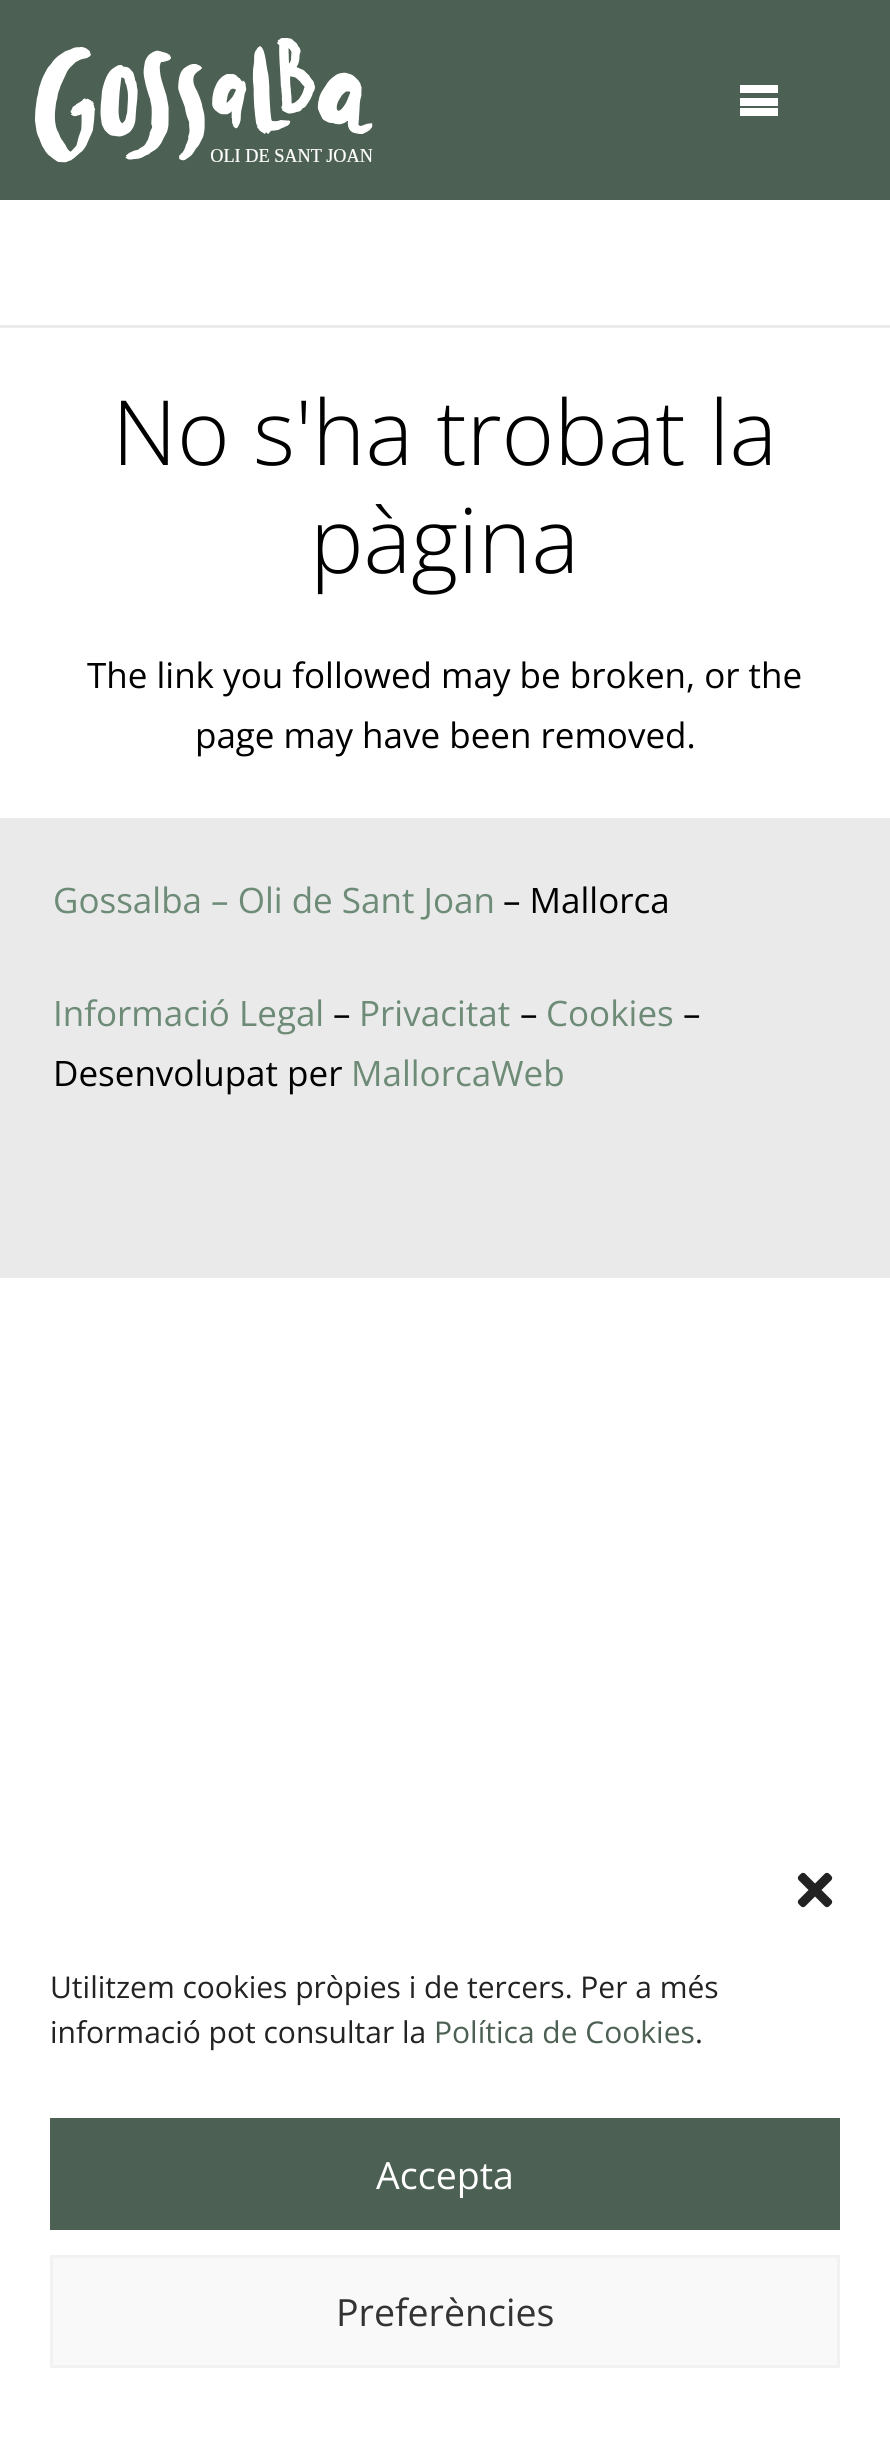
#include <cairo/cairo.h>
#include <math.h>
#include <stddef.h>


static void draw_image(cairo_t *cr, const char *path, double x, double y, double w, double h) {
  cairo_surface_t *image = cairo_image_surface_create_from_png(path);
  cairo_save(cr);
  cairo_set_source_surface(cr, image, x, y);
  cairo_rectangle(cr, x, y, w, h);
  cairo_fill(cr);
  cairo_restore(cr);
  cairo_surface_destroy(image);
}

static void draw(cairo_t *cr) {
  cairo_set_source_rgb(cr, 1, 1, 1);
  cairo_paint(cr);
  cairo_set_source_rgb(cr, 76 / 255.0, 96 / 255.0, 83 / 255.0);
  cairo_rectangle(cr, 0, 0, 890, 200);
  cairo_fill(cr);
  draw_image(cr, "images/1.png", 35, 38, 338, 125);
  cairo_set_source_rgb(cr, 1, 1, 1);
  cairo_rectangle(cr, 740, 98, 38, 8);
  cairo_fill(cr);
  cairo_rectangle(cr, 740, 85, 38, 8);
  cairo_fill(cr);
  cairo_rectangle(cr, 740, 108, 38, 8);
  cairo_fill(cr);
  cairo_set_source_rgb(cr, 235 / 255.0, 235 / 255.0, 235 / 255.0);
  cairo_rectangle(cr, 0, 325, 890, 3);
  cairo_fill(cr);
  cairo_set_source_rgb(cr, 234 / 255.0, 234 / 255.0, 234 / 255.0);
  cairo_rectangle(cr, 0, 818, 890, 460);
  cairo_fill(cr);
  draw_image(cr, "images/2.png", 797, 1872, 36, 36);
  cairo_set_source_rgb(cr, 76 / 255.0, 96 / 255.0, 83 / 255.0);
  cairo_rectangle(cr, 50, 2118, 790, 112);
  cairo_fill(cr);
  cairo_set_source_rgb(cr, 249 / 255.0, 249 / 255.0, 249 / 255.0);
  cairo_rectangle(cr, 51.5, 2256.5, 787, 110);
  cairo_fill_preserve(cr);
  cairo_set_source_rgb(cr, 242 / 255.0, 242 / 255.0, 242 / 255.0);
  cairo_set_line_width(cr, 3);
  cairo_stroke(cr);
  cairo_select_font_face(cr, "Open Sans Light", CAIRO_FONT_SLANT_NORMAL, CAIRO_FONT_WEIGHT_NORMAL);
  cairo_set_font_size(cr, 90);
  cairo_set_source_rgb(cr, 0, 0, 0);
  cairo_move_to(cr, 112, 465);
  cairo_show_text(cr, "No s'ha trobat la");
  cairo_move_to(cr, 310, 573);
  cairo_show_text(cr, "pàgina");
  cairo_select_font_face(cr, "Open Sans", CAIRO_FONT_SLANT_NORMAL, CAIRO_FONT_WEIGHT_NORMAL);
  cairo_set_font_size(cr, 35);
  cairo_move_to(cr, 87, 688);
  cairo_show_text(cr, "The link you followed may be broken, or the");
  cairo_move_to(cr, 195, 748);
  cairo_show_text(cr, "page may have been removed.");
  cairo_set_source_rgb(cr, 109 / 255.0, 139 / 255.0, 119 / 255.0);
  cairo_move_to(cr, 53, 913);
  cairo_show_text(cr, "Gossalba – Oli de Sant Joan");
  cairo_set_source_rgb(cr, 0, 0, 0);
  cairo_move_to(cr, 503, 913);
  cairo_show_text(cr, "– Mallorca");
  cairo_set_source_rgb(cr, 109 / 255.0, 139 / 255.0, 119 / 255.0);
  cairo_move_to(cr, 53, 1026);
  cairo_show_text(cr, "Informació Legal");
  cairo_set_source_rgb(cr, 0, 0, 0);
  cairo_move_to(cr, 333, 1026);
  cairo_show_text(cr, "–");
  cairo_set_source_rgb(cr, 109 / 255.0, 139 / 255.0, 119 / 255.0);
  cairo_move_to(cr, 359, 1026);
  cairo_show_text(cr, "Privacitat");
  cairo_set_source_rgb(cr, 0, 0, 0);
  cairo_move_to(cr, 520, 1026);
  cairo_show_text(cr, "–");
  cairo_set_source_rgb(cr, 109 / 255.0, 139 / 255.0, 119 / 255.0);
  cairo_move_to(cr, 546, 1026);
  cairo_show_text(cr, "Cookies");
  cairo_set_source_rgb(cr, 0, 0, 0);
  cairo_move_to(cr, 683, 1026);
  cairo_show_text(cr, "–");
  cairo_move_to(cr, 53, 1086);
  cairo_show_text(cr, "Desenvolupat per");
  cairo_set_source_rgb(cr, 109 / 255.0, 139 / 255.0, 119 / 255.0);
  cairo_move_to(cr, 351, 1086);
  cairo_show_text(cr, "MallorcaWeb");
  cairo_set_font_size(cr, 30);
  cairo_set_source_rgb(cr, 34 / 255.0, 34 / 255.0, 34 / 255.0);
  cairo_move_to(cr, 50, 1998);
  cairo_show_text(cr, "Utilitzem cookies pròpies i de tercers. Per a més");
  cairo_move_to(cr, 50, 2043);
  cairo_show_text(cr, "informació pot consultar la");
  cairo_set_source_rgb(cr, 76 / 255.0, 96 / 255.0, 83 / 255.0);
  cairo_move_to(cr, 434, 2043);
  cairo_show_text(cr, "Política de Cookies");
  cairo_set_source_rgb(cr, 34 / 255.0, 34 / 255.0, 34 / 255.0);
  cairo_move_to(cr, 695, 2043);
  cairo_show_text(cr, ".");
  cairo_set_font_size(cr, 37.5);
  cairo_set_source_rgb(cr, 1, 1, 1);
  cairo_move_to(cr, 376, 2189);
  cairo_show_text(cr, "Accepta");
  cairo_set_source_rgb(cr, 51 / 255.0, 51 / 255.0, 51 / 255.0);
  cairo_move_to(cr, 336, 2326);
  cairo_show_text(cr, "Preferències");
}

int main(void) {
  cairo_surface_t *surface = cairo_image_surface_create(CAIRO_FORMAT_RGB24, 890, 2447);
  cairo_t *cr = cairo_create(surface);
  cairo_font_options_t *options = cairo_font_options_create();
  cairo_font_options_set_hint_metrics(options, CAIRO_HINT_METRICS_OFF);
  cairo_font_options_set_hint_style(options, CAIRO_HINT_STYLE_NONE);
  cairo_set_font_options(cr, options);
  cairo_set_miter_limit(cr, 4);
  draw(cr);
  cairo_surface_write_to_png(surface, "out.png");
  cairo_font_options_destroy(options);
  cairo_destroy(cr);
  cairo_surface_destroy(surface);
  return 0;
}
